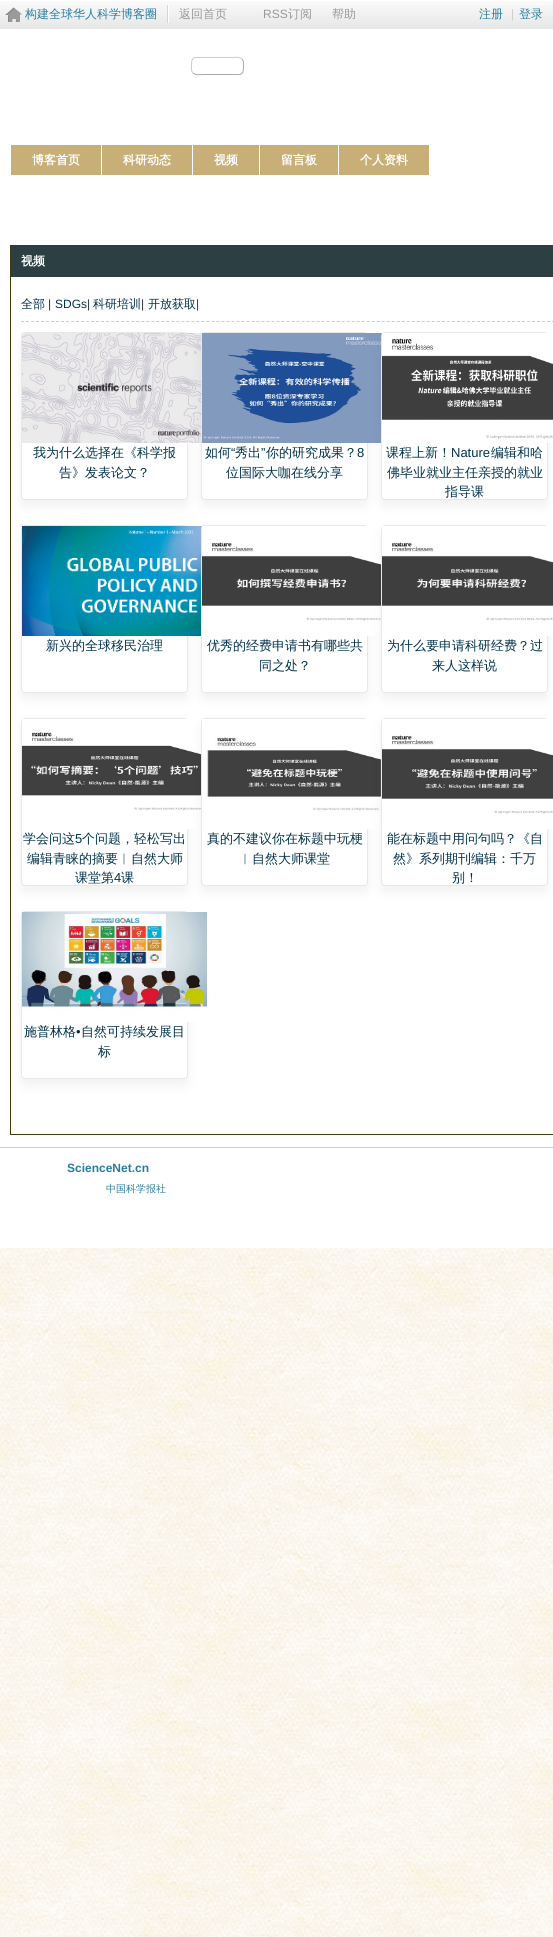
#include <cairo/cairo.h>
#include <math.h>
#include <stddef.h>


static void rounded_rect(cairo_t *cr, double x, double y, double w, double h, double r) {
  cairo_new_sub_path(cr);
  cairo_arc(cr, x + w - r, y + h - r, r, 0, M_PI / 2);
  cairo_arc(cr, x + r, y + h - r, r, M_PI / 2, M_PI);
  cairo_arc(cr, x + r, y + r, r, M_PI, 1.5 * M_PI);
  cairo_arc(cr, x + w - r, y + r, r, 1.5 * M_PI, 2 * M_PI);
  cairo_close_path(cr);
}

static void draw_shadow(cairo_t *cr, double x, double y, double w, double h, double r, double blur, double alpha) {
  cairo_push_group_with_content(cr, CAIRO_CONTENT_ALPHA);
  cairo_set_operator(cr, CAIRO_OPERATOR_SOURCE);
  for (int i = 15; i >= -15 && fmin(w, h) + blur * i / 3 > 0; i -= 2) {
    double e = blur * i / 6;
    cairo_set_source_rgba(cr, 0, 0, 0, alpha * erfc((i - 1) / 8.5) / 2);
    rounded_rect(cr, x - e, y - e, w + 2 * e, h + 2 * e, fmax(0, fmin(r + e + blur * .6, fmin(w, h) / 2 + e)));
    cairo_fill(cr);
  }
  cairo_pattern_t *soft = cairo_pop_group(cr);
  cairo_mask(cr, soft);
  cairo_pattern_destroy(soft);
}

static void draw_image(cairo_t *cr, const char *path, double x, double y, double w, double h) {
  cairo_surface_t *image = cairo_image_surface_create_from_png(path);
  cairo_save(cr);
  cairo_set_source_surface(cr, image, x, y);
  cairo_rectangle(cr, x, y, w, h);
  cairo_fill(cr);
  cairo_restore(cr);
  cairo_surface_destroy(image);
}

static void draw(cairo_t *cr) {
  cairo_set_source_rgb(cr, 1, 1, 1);
  cairo_paint(cr);
  draw_image(cr, "images/1.png", 0, 1248, 553, 689);
  draw_image(cr, "images/2.png", 0, 1, 553, 28);
  draw_image(cr, "images/3.png", 5, 7, 17, 15);
  cairo_set_source_rgb(cr, 1, 1, 1);
  cairo_rectangle(cr, 168, 5, 1, 18);
  cairo_fill(cr);
  cairo_set_source_rgb(cr, 213 / 255.0, 213 / 255.0, 213 / 255.0);
  cairo_rectangle(cr, 167, 5, 1, 18);
  cairo_fill(cr);
  cairo_new_path(cr);
  cairo_move_to(cr, 242, 59);
  cairo_curve_to(cr, 244, 61, 243.5, 64, 243.5, 67);
  cairo_curve_to(cr, 243.5, 76, 240.5, 74.5, 232, 74.5);
  cairo_line_to(cr, 203, 74.5);
  cairo_curve_to(cr, 201, 74.5, 195.5, 75.5, 193, 73);
  cairo_set_source_rgb(cr, 169 / 255.0, 169 / 255.0, 169 / 255.0);
  cairo_set_line_width(cr, 1);
  cairo_stroke(cr);
  cairo_new_path(cr);
  cairo_move_to(cr, 193, 73);
  cairo_curve_to(cr, 191, 71, 191.5, 68, 191.5, 65);
  cairo_curve_to(cr, 191.5, 56, 194.5, 57.5, 203, 57.5);
  cairo_line_to(cr, 232, 57.5);
  cairo_curve_to(cr, 234, 57.5, 239.5, 56.5, 242, 59);
  cairo_set_source_rgb(cr, 204 / 255.0, 204 / 255.0, 204 / 255.0);
  cairo_stroke(cr);
  cairo_set_source_rgb(cr, 199 / 255.0, 175 / 255.0, 119 / 255.0);
  cairo_rectangle(cr, 11, 145, 90, 30);
  cairo_fill(cr);
  cairo_rectangle(cr, 102, 145, 90, 30);
  cairo_fill(cr);
  cairo_rectangle(cr, 193, 145, 66, 30);
  cairo_fill(cr);
  cairo_rectangle(cr, 260, 145, 78, 30);
  cairo_fill(cr);
  cairo_rectangle(cr, 339, 145, 90, 30);
  cairo_fill(cr);
  cairo_rectangle(cr, 10.5, 245.5, 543, 889);
  cairo_set_source_rgb(cr, 65 / 255.0, 59 / 255.0, 10 / 255.0);
  cairo_stroke(cr);
  cairo_set_source_rgb(cr, 44 / 255.0, 64 / 255.0, 68 / 255.0);
  cairo_rectangle(cr, 11, 246, 542, 31);
  cairo_fill(cr);
  cairo_new_path(cr);
  cairo_move_to(cr, 21, 321.5);
  cairo_line_to(cr, 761, 321.5);
  cairo_set_source_rgb(cr, 205 / 255.0, 205 / 255.0, 205 / 255.0);
  cairo_set_dash(cr, (double[]){3, 2.01}, 2, 0);
  cairo_stroke(cr);
  cairo_save(cr);
  cairo_set_fill_rule(cr, CAIRO_FILL_RULE_EVEN_ODD);
  cairo_new_path(cr);
  cairo_move_to(cr, 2, 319);
  cairo_line_to(cr, 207, 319);
  cairo_line_to(cr, 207, 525);
  cairo_line_to(cr, 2, 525);
  cairo_close_path(cr);
  cairo_move_to(cr, 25, 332);
  cairo_line_to(cr, 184, 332);
  cairo_curve_to(cr, 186, 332, 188, 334, 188, 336);
  cairo_line_to(cr, 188, 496);
  cairo_curve_to(cr, 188, 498, 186, 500, 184, 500);
  cairo_line_to(cr, 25, 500);
  cairo_curve_to(cr, 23, 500, 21, 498, 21, 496);
  cairo_line_to(cr, 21, 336);
  cairo_curve_to(cr, 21, 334, 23, 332, 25, 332);
  cairo_close_path(cr);
  cairo_clip(cr);
  cairo_set_source_rgb(cr, 0, 0, 0);
  draw_shadow(cr, 21, 338, 167, 168, 4, 6, 0.06);
  cairo_restore(cr);
  rounded_rect(cr, 21.5, 332.5, 166, 167, 3.5);
  cairo_set_source_rgb(cr, 232 / 255.0, 232 / 255.0, 232 / 255.0);
  cairo_set_dash(cr, NULL, 0, 0);
  cairo_stroke(cr);
  draw_image(cr, "images/4.png", 22, 333, 180, 110);
  cairo_save(cr);
  cairo_set_fill_rule(cr, CAIRO_FILL_RULE_EVEN_ODD);
  cairo_new_path(cr);
  cairo_move_to(cr, 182, 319);
  cairo_line_to(cr, 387, 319);
  cairo_line_to(cr, 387, 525);
  cairo_line_to(cr, 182, 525);
  cairo_close_path(cr);
  cairo_move_to(cr, 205, 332);
  cairo_line_to(cr, 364, 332);
  cairo_curve_to(cr, 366, 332, 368, 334, 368, 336);
  cairo_line_to(cr, 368, 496);
  cairo_curve_to(cr, 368, 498, 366, 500, 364, 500);
  cairo_line_to(cr, 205, 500);
  cairo_curve_to(cr, 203, 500, 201, 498, 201, 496);
  cairo_line_to(cr, 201, 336);
  cairo_curve_to(cr, 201, 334, 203, 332, 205, 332);
  cairo_close_path(cr);
  cairo_clip(cr);
  cairo_set_source_rgb(cr, 0, 0, 0);
  draw_shadow(cr, 201, 338, 167, 168, 4, 6, 0.06);
  cairo_restore(cr);
  rounded_rect(cr, 201.5, 332.5, 166, 167, 3.5);
  cairo_stroke(cr);
  draw_image(cr, "images/5.png", 202, 333, 180, 110);
  cairo_save(cr);
  cairo_set_fill_rule(cr, CAIRO_FILL_RULE_EVEN_ODD);
  cairo_new_path(cr);
  cairo_move_to(cr, 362, 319);
  cairo_line_to(cr, 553, 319);
  cairo_line_to(cr, 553, 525);
  cairo_line_to(cr, 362, 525);
  cairo_close_path(cr);
  cairo_move_to(cr, 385, 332);
  cairo_line_to(cr, 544, 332);
  cairo_curve_to(cr, 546, 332, 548, 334, 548, 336);
  cairo_line_to(cr, 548, 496);
  cairo_curve_to(cr, 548, 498, 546, 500, 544, 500);
  cairo_line_to(cr, 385, 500);
  cairo_curve_to(cr, 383, 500, 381, 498, 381, 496);
  cairo_line_to(cr, 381, 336);
  cairo_curve_to(cr, 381, 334, 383, 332, 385, 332);
  cairo_close_path(cr);
  cairo_clip(cr);
  cairo_set_source_rgb(cr, 0, 0, 0);
  draw_shadow(cr, 381, 338, 167, 168, 4, 6, 0.06);
  cairo_restore(cr);
  rounded_rect(cr, 381.5, 332.5, 166, 167, 3.5);
  cairo_stroke(cr);
  draw_image(cr, "images/6.png", 382, 333, 171, 110);
  cairo_save(cr);
  cairo_set_fill_rule(cr, CAIRO_FILL_RULE_EVEN_ODD);
  cairo_new_path(cr);
  cairo_move_to(cr, 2, 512);
  cairo_line_to(cr, 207, 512);
  cairo_line_to(cr, 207, 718);
  cairo_line_to(cr, 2, 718);
  cairo_close_path(cr);
  cairo_move_to(cr, 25, 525);
  cairo_line_to(cr, 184, 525);
  cairo_curve_to(cr, 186, 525, 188, 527, 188, 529);
  cairo_line_to(cr, 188, 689);
  cairo_curve_to(cr, 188, 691, 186, 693, 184, 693);
  cairo_line_to(cr, 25, 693);
  cairo_curve_to(cr, 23, 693, 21, 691, 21, 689);
  cairo_line_to(cr, 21, 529);
  cairo_curve_to(cr, 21, 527, 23, 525, 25, 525);
  cairo_close_path(cr);
  cairo_clip(cr);
  cairo_set_source_rgb(cr, 0, 0, 0);
  draw_shadow(cr, 21, 531, 167, 168, 4, 6, 0.06);
  cairo_restore(cr);
  rounded_rect(cr, 21.5, 525.5, 166, 167, 3.5);
  cairo_stroke(cr);
  draw_image(cr, "images/7.png", 22, 526, 180, 110);
  cairo_save(cr);
  cairo_set_fill_rule(cr, CAIRO_FILL_RULE_EVEN_ODD);
  cairo_new_path(cr);
  cairo_move_to(cr, 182, 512);
  cairo_line_to(cr, 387, 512);
  cairo_line_to(cr, 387, 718);
  cairo_line_to(cr, 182, 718);
  cairo_close_path(cr);
  cairo_move_to(cr, 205, 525);
  cairo_line_to(cr, 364, 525);
  cairo_curve_to(cr, 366, 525, 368, 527, 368, 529);
  cairo_line_to(cr, 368, 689);
  cairo_curve_to(cr, 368, 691, 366, 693, 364, 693);
  cairo_line_to(cr, 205, 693);
  cairo_curve_to(cr, 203, 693, 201, 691, 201, 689);
  cairo_line_to(cr, 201, 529);
  cairo_curve_to(cr, 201, 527, 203, 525, 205, 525);
  cairo_close_path(cr);
  cairo_clip(cr);
  cairo_set_source_rgb(cr, 0, 0, 0);
  draw_shadow(cr, 201, 531, 167, 168, 4, 6, 0.06);
  cairo_restore(cr);
  rounded_rect(cr, 201.5, 525.5, 166, 167, 3.5);
  cairo_stroke(cr);
  draw_image(cr, "images/8.png", 202, 526, 180, 110);
  cairo_save(cr);
  cairo_set_fill_rule(cr, CAIRO_FILL_RULE_EVEN_ODD);
  cairo_new_path(cr);
  cairo_move_to(cr, 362, 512);
  cairo_line_to(cr, 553, 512);
  cairo_line_to(cr, 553, 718);
  cairo_line_to(cr, 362, 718);
  cairo_close_path(cr);
  cairo_move_to(cr, 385, 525);
  cairo_line_to(cr, 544, 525);
  cairo_curve_to(cr, 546, 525, 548, 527, 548, 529);
  cairo_line_to(cr, 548, 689);
  cairo_curve_to(cr, 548, 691, 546, 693, 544, 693);
  cairo_line_to(cr, 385, 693);
  cairo_curve_to(cr, 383, 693, 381, 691, 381, 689);
  cairo_line_to(cr, 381, 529);
  cairo_curve_to(cr, 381, 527, 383, 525, 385, 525);
  cairo_close_path(cr);
  cairo_clip(cr);
  cairo_set_source_rgb(cr, 0, 0, 0);
  draw_shadow(cr, 381, 531, 167, 168, 4, 6, 0.06);
  cairo_restore(cr);
  rounded_rect(cr, 381.5, 525.5, 166, 167, 3.5);
  cairo_stroke(cr);
  draw_image(cr, "images/9.png", 382, 526, 171, 110);
  cairo_save(cr);
  cairo_set_fill_rule(cr, CAIRO_FILL_RULE_EVEN_ODD);
  cairo_new_path(cr);
  cairo_move_to(cr, 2, 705);
  cairo_line_to(cr, 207, 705);
  cairo_line_to(cr, 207, 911);
  cairo_line_to(cr, 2, 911);
  cairo_close_path(cr);
  cairo_move_to(cr, 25, 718);
  cairo_line_to(cr, 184, 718);
  cairo_curve_to(cr, 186, 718, 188, 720, 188, 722);
  cairo_line_to(cr, 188, 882);
  cairo_curve_to(cr, 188, 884, 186, 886, 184, 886);
  cairo_line_to(cr, 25, 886);
  cairo_curve_to(cr, 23, 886, 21, 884, 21, 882);
  cairo_line_to(cr, 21, 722);
  cairo_curve_to(cr, 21, 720, 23, 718, 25, 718);
  cairo_close_path(cr);
  cairo_clip(cr);
  cairo_set_source_rgb(cr, 0, 0, 0);
  draw_shadow(cr, 21, 724, 167, 168, 4, 6, 0.06);
  cairo_restore(cr);
  rounded_rect(cr, 21.5, 718.5, 166, 167, 3.5);
  cairo_stroke(cr);
  draw_image(cr, "images/10.png", 22, 719, 180, 110);
  cairo_save(cr);
  cairo_set_fill_rule(cr, CAIRO_FILL_RULE_EVEN_ODD);
  cairo_new_path(cr);
  cairo_move_to(cr, 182, 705);
  cairo_line_to(cr, 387, 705);
  cairo_line_to(cr, 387, 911);
  cairo_line_to(cr, 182, 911);
  cairo_close_path(cr);
  cairo_move_to(cr, 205, 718);
  cairo_line_to(cr, 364, 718);
  cairo_curve_to(cr, 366, 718, 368, 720, 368, 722);
  cairo_line_to(cr, 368, 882);
  cairo_curve_to(cr, 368, 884, 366, 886, 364, 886);
  cairo_line_to(cr, 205, 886);
  cairo_curve_to(cr, 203, 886, 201, 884, 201, 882);
  cairo_line_to(cr, 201, 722);
  cairo_curve_to(cr, 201, 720, 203, 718, 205, 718);
  cairo_close_path(cr);
  cairo_clip(cr);
  cairo_set_source_rgb(cr, 0, 0, 0);
  draw_shadow(cr, 201, 724, 167, 168, 4, 6, 0.06);
  cairo_restore(cr);
  rounded_rect(cr, 201.5, 718.5, 166, 167, 3.5);
  cairo_stroke(cr);
  draw_image(cr, "images/11.png", 202, 719, 180, 110);
  cairo_save(cr);
  cairo_set_fill_rule(cr, CAIRO_FILL_RULE_EVEN_ODD);
  cairo_new_path(cr);
  cairo_move_to(cr, 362, 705);
  cairo_line_to(cr, 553, 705);
  cairo_line_to(cr, 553, 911);
  cairo_line_to(cr, 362, 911);
  cairo_close_path(cr);
  cairo_move_to(cr, 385, 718);
  cairo_line_to(cr, 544, 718);
  cairo_curve_to(cr, 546, 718, 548, 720, 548, 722);
  cairo_line_to(cr, 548, 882);
  cairo_curve_to(cr, 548, 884, 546, 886, 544, 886);
  cairo_line_to(cr, 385, 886);
  cairo_curve_to(cr, 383, 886, 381, 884, 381, 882);
  cairo_line_to(cr, 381, 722);
  cairo_curve_to(cr, 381, 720, 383, 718, 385, 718);
  cairo_close_path(cr);
  cairo_clip(cr);
  cairo_set_source_rgb(cr, 0, 0, 0);
  draw_shadow(cr, 381, 724, 167, 168, 4, 6, 0.06);
  cairo_restore(cr);
  rounded_rect(cr, 381.5, 718.5, 166, 167, 3.5);
  cairo_stroke(cr);
  draw_image(cr, "images/12.png", 382, 719, 171, 110);
  cairo_save(cr);
  cairo_set_fill_rule(cr, CAIRO_FILL_RULE_EVEN_ODD);
  cairo_new_path(cr);
  cairo_move_to(cr, 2, 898);
  cairo_line_to(cr, 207, 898);
  cairo_line_to(cr, 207, 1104);
  cairo_line_to(cr, 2, 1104);
  cairo_close_path(cr);
  cairo_move_to(cr, 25, 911);
  cairo_line_to(cr, 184, 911);
  cairo_curve_to(cr, 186, 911, 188, 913, 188, 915);
  cairo_line_to(cr, 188, 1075);
  cairo_curve_to(cr, 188, 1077, 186, 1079, 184, 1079);
  cairo_line_to(cr, 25, 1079);
  cairo_curve_to(cr, 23, 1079, 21, 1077, 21, 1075);
  cairo_line_to(cr, 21, 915);
  cairo_curve_to(cr, 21, 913, 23, 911, 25, 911);
  cairo_close_path(cr);
  cairo_clip(cr);
  cairo_set_source_rgb(cr, 0, 0, 0);
  draw_shadow(cr, 21, 917, 167, 168, 4, 6, 0.06);
  cairo_restore(cr);
  rounded_rect(cr, 21.5, 911.5, 166, 167, 3.5);
  cairo_stroke(cr);
  draw_image(cr, "images/13.png", 22, 912, 185, 110);
  cairo_set_source_rgb(cr, 205 / 255.0, 205 / 255.0, 205 / 255.0);
  cairo_rectangle(cr, 0, 1147, 553, 1);
  cairo_fill(cr);
  cairo_select_font_face(cr, "WenQuanYi Zen Hei Medium", CAIRO_FONT_SLANT_NORMAL, CAIRO_FONT_WEIGHT_NORMAL);
  cairo_set_font_size(cr, 12);
  cairo_set_source_rgb(cr, 38 / 255.0, 126 / 255.0, 158 / 255.0);
  cairo_move_to(cr, 25, 18);
  cairo_show_text(cr, "构建全球华人科学博客圈");
  cairo_set_source_rgb(cr, 153 / 255.0, 153 / 255.0, 153 / 255.0);
  cairo_move_to(cr, 179, 18);
  cairo_show_text(cr, "返回首页");
  cairo_select_font_face(cr, "Liberation Sans", CAIRO_FONT_SLANT_NORMAL, CAIRO_FONT_WEIGHT_NORMAL);
  cairo_move_to(cr, 263, 18);
  cairo_show_text(cr, "RSS");
  cairo_select_font_face(cr, "WenQuanYi Zen Hei Medium", CAIRO_FONT_SLANT_NORMAL, CAIRO_FONT_WEIGHT_NORMAL);
  cairo_move_to(cr, 288, 18);
  cairo_show_text(cr, "订阅");
  cairo_move_to(cr, 332, 18);
  cairo_show_text(cr, "帮助");
  cairo_set_source_rgb(cr, 38 / 255.0, 126 / 255.0, 158 / 255.0);
  cairo_move_to(cr, 479, 18);
  cairo_show_text(cr, "注册");
  cairo_select_font_face(cr, "Liberation Sans", CAIRO_FONT_SLANT_NORMAL, CAIRO_FONT_WEIGHT_NORMAL);
  cairo_set_source_rgb(cr, 204 / 255.0, 204 / 255.0, 204 / 255.0);
  cairo_move_to(cr, 511, 18);
  cairo_show_text(cr, "|");
  cairo_select_font_face(cr, "WenQuanYi Zen Hei Medium", CAIRO_FONT_SLANT_NORMAL, CAIRO_FONT_WEIGHT_NORMAL);
  cairo_set_source_rgb(cr, 38 / 255.0, 126 / 255.0, 158 / 255.0);
  cairo_move_to(cr, 519, 18);
  cairo_show_text(cr, "登录");
  cairo_select_font_face(cr, "WenQuanYi Zen Hei", CAIRO_FONT_SLANT_NORMAL, CAIRO_FONT_WEIGHT_BOLD);
  cairo_set_source_rgb(cr, 1, 1, 1);
  cairo_move_to(cr, 32, 164);
  cairo_show_text(cr, "博客首页");
  cairo_move_to(cr, 123, 164);
  cairo_show_text(cr, "科研动态");
  cairo_move_to(cr, 214, 164);
  cairo_show_text(cr, "视频");
  cairo_move_to(cr, 281, 164);
  cairo_show_text(cr, "留言板");
  cairo_move_to(cr, 360, 164);
  cairo_show_text(cr, "个人资料");
  cairo_move_to(cr, 21, 265);
  cairo_show_text(cr, "视频");
  cairo_select_font_face(cr, "WenQuanYi Zen Hei Medium", CAIRO_FONT_SLANT_NORMAL, CAIRO_FONT_WEIGHT_NORMAL);
  cairo_set_source_rgb(cr, 1 / 255.0, 50 / 255.0, 75 / 255.0);
  cairo_move_to(cr, 21, 308);
  cairo_show_text(cr, "全部");
  cairo_select_font_face(cr, "Liberation Sans", CAIRO_FONT_SLANT_NORMAL, CAIRO_FONT_WEIGHT_NORMAL);
  cairo_set_source_rgb(cr, 51 / 255.0, 51 / 255.0, 51 / 255.0);
  cairo_move_to(cr, 48, 308);
  cairo_show_text(cr, "|");
  cairo_set_source_rgb(cr, 1 / 255.0, 50 / 255.0, 75 / 255.0);
  cairo_move_to(cr, 55, 308);
  cairo_show_text(cr, "SDGs");
  cairo_set_source_rgb(cr, 51 / 255.0, 51 / 255.0, 51 / 255.0);
  cairo_move_to(cr, 87, 308);
  cairo_show_text(cr, "|");
  cairo_select_font_face(cr, "WenQuanYi Zen Hei Medium", CAIRO_FONT_SLANT_NORMAL, CAIRO_FONT_WEIGHT_NORMAL);
  cairo_set_source_rgb(cr, 1 / 255.0, 50 / 255.0, 75 / 255.0);
  cairo_move_to(cr, 93, 308);
  cairo_show_text(cr, "科研培训");
  cairo_select_font_face(cr, "Liberation Sans", CAIRO_FONT_SLANT_NORMAL, CAIRO_FONT_WEIGHT_NORMAL);
  cairo_set_source_rgb(cr, 51 / 255.0, 51 / 255.0, 51 / 255.0);
  cairo_move_to(cr, 141, 308);
  cairo_show_text(cr, "|");
  cairo_select_font_face(cr, "WenQuanYi Zen Hei Medium", CAIRO_FONT_SLANT_NORMAL, CAIRO_FONT_WEIGHT_NORMAL);
  cairo_set_source_rgb(cr, 1 / 255.0, 50 / 255.0, 75 / 255.0);
  cairo_move_to(cr, 148, 308);
  cairo_show_text(cr, "开放获取");
  cairo_select_font_face(cr, "Liberation Sans", CAIRO_FONT_SLANT_NORMAL, CAIRO_FONT_WEIGHT_NORMAL);
  cairo_set_source_rgb(cr, 51 / 255.0, 51 / 255.0, 51 / 255.0);
  cairo_move_to(cr, 196, 308);
  cairo_show_text(cr, "|");
  cairo_select_font_face(cr, "WenQuanYi Zen Hei Medium", CAIRO_FONT_SLANT_NORMAL, CAIRO_FONT_WEIGHT_NORMAL);
  cairo_set_font_size(cr, 13);
  cairo_set_source_rgb(cr, 1 / 255.0, 50 / 255.0, 75 / 255.0);
  cairo_move_to(cr, 33, 457);
  cairo_show_text(cr, "我为什么选择在《科学报");
  cairo_move_to(cr, 59, 477);
  cairo_show_text(cr, "告》发表论文？");
  cairo_move_to(cr, 205, 457);
  cairo_show_text(cr, "如何");
  cairo_select_font_face(cr, "Liberation Sans", CAIRO_FONT_SLANT_NORMAL, CAIRO_FONT_WEIGHT_NORMAL);
  cairo_move_to(cr, 231, 457);
  cairo_show_text(cr, "“");
  cairo_select_font_face(cr, "WenQuanYi Zen Hei Medium", CAIRO_FONT_SLANT_NORMAL, CAIRO_FONT_WEIGHT_NORMAL);
  cairo_move_to(cr, 235, 457);
  cairo_show_text(cr, "秀出");
  cairo_select_font_face(cr, "Liberation Sans", CAIRO_FONT_SLANT_NORMAL, CAIRO_FONT_WEIGHT_NORMAL);
  cairo_move_to(cr, 261, 457);
  cairo_show_text(cr, "”");
  cairo_select_font_face(cr, "WenQuanYi Zen Hei Medium", CAIRO_FONT_SLANT_NORMAL, CAIRO_FONT_WEIGHT_NORMAL);
  cairo_move_to(cr, 266, 457);
  cairo_show_text(cr, "你的研究成果？");
  cairo_select_font_face(cr, "Liberation Sans", CAIRO_FONT_SLANT_NORMAL, CAIRO_FONT_WEIGHT_NORMAL);
  cairo_move_to(cr, 357, 457);
  cairo_show_text(cr, "8");
  cairo_select_font_face(cr, "WenQuanYi Zen Hei Medium", CAIRO_FONT_SLANT_NORMAL, CAIRO_FONT_WEIGHT_NORMAL);
  cairo_move_to(cr, 226, 477);
  cairo_show_text(cr, "位国际大咖在线分享");
  cairo_move_to(cr, 386, 457);
  cairo_show_text(cr, "课程上新！");
  cairo_select_font_face(cr, "Liberation Sans", CAIRO_FONT_SLANT_NORMAL, CAIRO_FONT_WEIGHT_NORMAL);
  cairo_move_to(cr, 451, 457);
  cairo_show_text(cr, "Nature");
  cairo_select_font_face(cr, "WenQuanYi Zen Hei Medium", CAIRO_FONT_SLANT_NORMAL, CAIRO_FONT_WEIGHT_NORMAL);
  cairo_move_to(cr, 491, 457);
  cairo_show_text(cr, "编辑和哈");
  cairo_move_to(cr, 387, 477);
  cairo_show_text(cr, "佛毕业就业主任亲授的就业");
  cairo_move_to(cr, 445, 496);
  cairo_show_text(cr, "指导课");
  cairo_move_to(cr, 46, 650);
  cairo_show_text(cr, "新兴的全球移民治理");
  cairo_move_to(cr, 207, 650);
  cairo_show_text(cr, "优秀的经费申请书有哪些共");
  cairo_move_to(cr, 259, 670);
  cairo_show_text(cr, "同之处？");
  cairo_move_to(cr, 387, 650);
  cairo_show_text(cr, "为什么要申请科研经费？过");
  cairo_move_to(cr, 432, 670);
  cairo_show_text(cr, "来人这样说");
  cairo_move_to(cr, 23, 843);
  cairo_show_text(cr, "学会问这");
  cairo_select_font_face(cr, "Liberation Sans", CAIRO_FONT_SLANT_NORMAL, CAIRO_FONT_WEIGHT_NORMAL);
  cairo_move_to(cr, 75, 843);
  cairo_show_text(cr, "5");
  cairo_select_font_face(cr, "WenQuanYi Zen Hei Medium", CAIRO_FONT_SLANT_NORMAL, CAIRO_FONT_WEIGHT_NORMAL);
  cairo_move_to(cr, 82, 843);
  cairo_show_text(cr, "个问题，轻松写出");
  cairo_move_to(cr, 27, 863);
  cairo_show_text(cr, "编辑青睐的摘要︱自然大师");
  cairo_move_to(cr, 75, 882);
  cairo_show_text(cr, "课堂第");
  cairo_select_font_face(cr, "Liberation Sans", CAIRO_FONT_SLANT_NORMAL, CAIRO_FONT_WEIGHT_NORMAL);
  cairo_move_to(cr, 114, 882);
  cairo_show_text(cr, "4");
  cairo_select_font_face(cr, "WenQuanYi Zen Hei Medium", CAIRO_FONT_SLANT_NORMAL, CAIRO_FONT_WEIGHT_NORMAL);
  cairo_move_to(cr, 121, 882);
  cairo_show_text(cr, "课");
  cairo_move_to(cr, 207, 843);
  cairo_show_text(cr, "真的不建议你在标题中玩梗");
  cairo_move_to(cr, 239, 863);
  cairo_show_text(cr, "︱自然大师课堂");
  cairo_move_to(cr, 387, 843);
  cairo_show_text(cr, "能在标题中用问句吗？《自");
  cairo_move_to(cr, 393, 863);
  cairo_show_text(cr, "然》系列期刊编辑：千万");
  cairo_move_to(cr, 452, 882);
  cairo_show_text(cr, "别！");
  cairo_move_to(cr, 24, 1036);
  cairo_show_text(cr, "施普林格");
  cairo_select_font_face(cr, "Liberation Sans", CAIRO_FONT_SLANT_NORMAL, CAIRO_FONT_WEIGHT_NORMAL);
  cairo_move_to(cr, 76, 1036);
  cairo_show_text(cr, "•");
  cairo_select_font_face(cr, "WenQuanYi Zen Hei Medium", CAIRO_FONT_SLANT_NORMAL, CAIRO_FONT_WEIGHT_NORMAL);
  cairo_move_to(cr, 81, 1036);
  cairo_show_text(cr, "自然可持续发展目");
  cairo_move_to(cr, 98, 1056);
  cairo_show_text(cr, "标");
  cairo_select_font_face(cr, "Liberation Sans", CAIRO_FONT_SLANT_NORMAL, CAIRO_FONT_WEIGHT_BOLD);
  cairo_set_font_size(cr, 12);
  cairo_set_source_rgb(cr, 38 / 255.0, 126 / 255.0, 158 / 255.0);
  cairo_move_to(cr, 67, 1172);
  cairo_show_text(cr, "ScienceNet.cn");
  cairo_select_font_face(cr, "WenQuanYi Zen Hei Medium", CAIRO_FONT_SLANT_NORMAL, CAIRO_FONT_WEIGHT_NORMAL);
  cairo_set_font_size(cr, 10);
  cairo_move_to(cr, 106, 1192);
  cairo_show_text(cr, "中国科学报社");
}

int main(void) {
  cairo_surface_t *surface = cairo_image_surface_create(CAIRO_FORMAT_RGB24, 553, 1937);
  cairo_t *cr = cairo_create(surface);
  cairo_font_options_t *options = cairo_font_options_create();
  cairo_font_options_set_hint_metrics(options, CAIRO_HINT_METRICS_OFF);
  cairo_font_options_set_hint_style(options, CAIRO_HINT_STYLE_NONE);
  cairo_set_font_options(cr, options);
  cairo_set_miter_limit(cr, 4);
  draw(cr);
  cairo_surface_write_to_png(surface, "out.png");
  cairo_font_options_destroy(options);
  cairo_destroy(cr);
  cairo_surface_destroy(surface);
  return 0;
}
